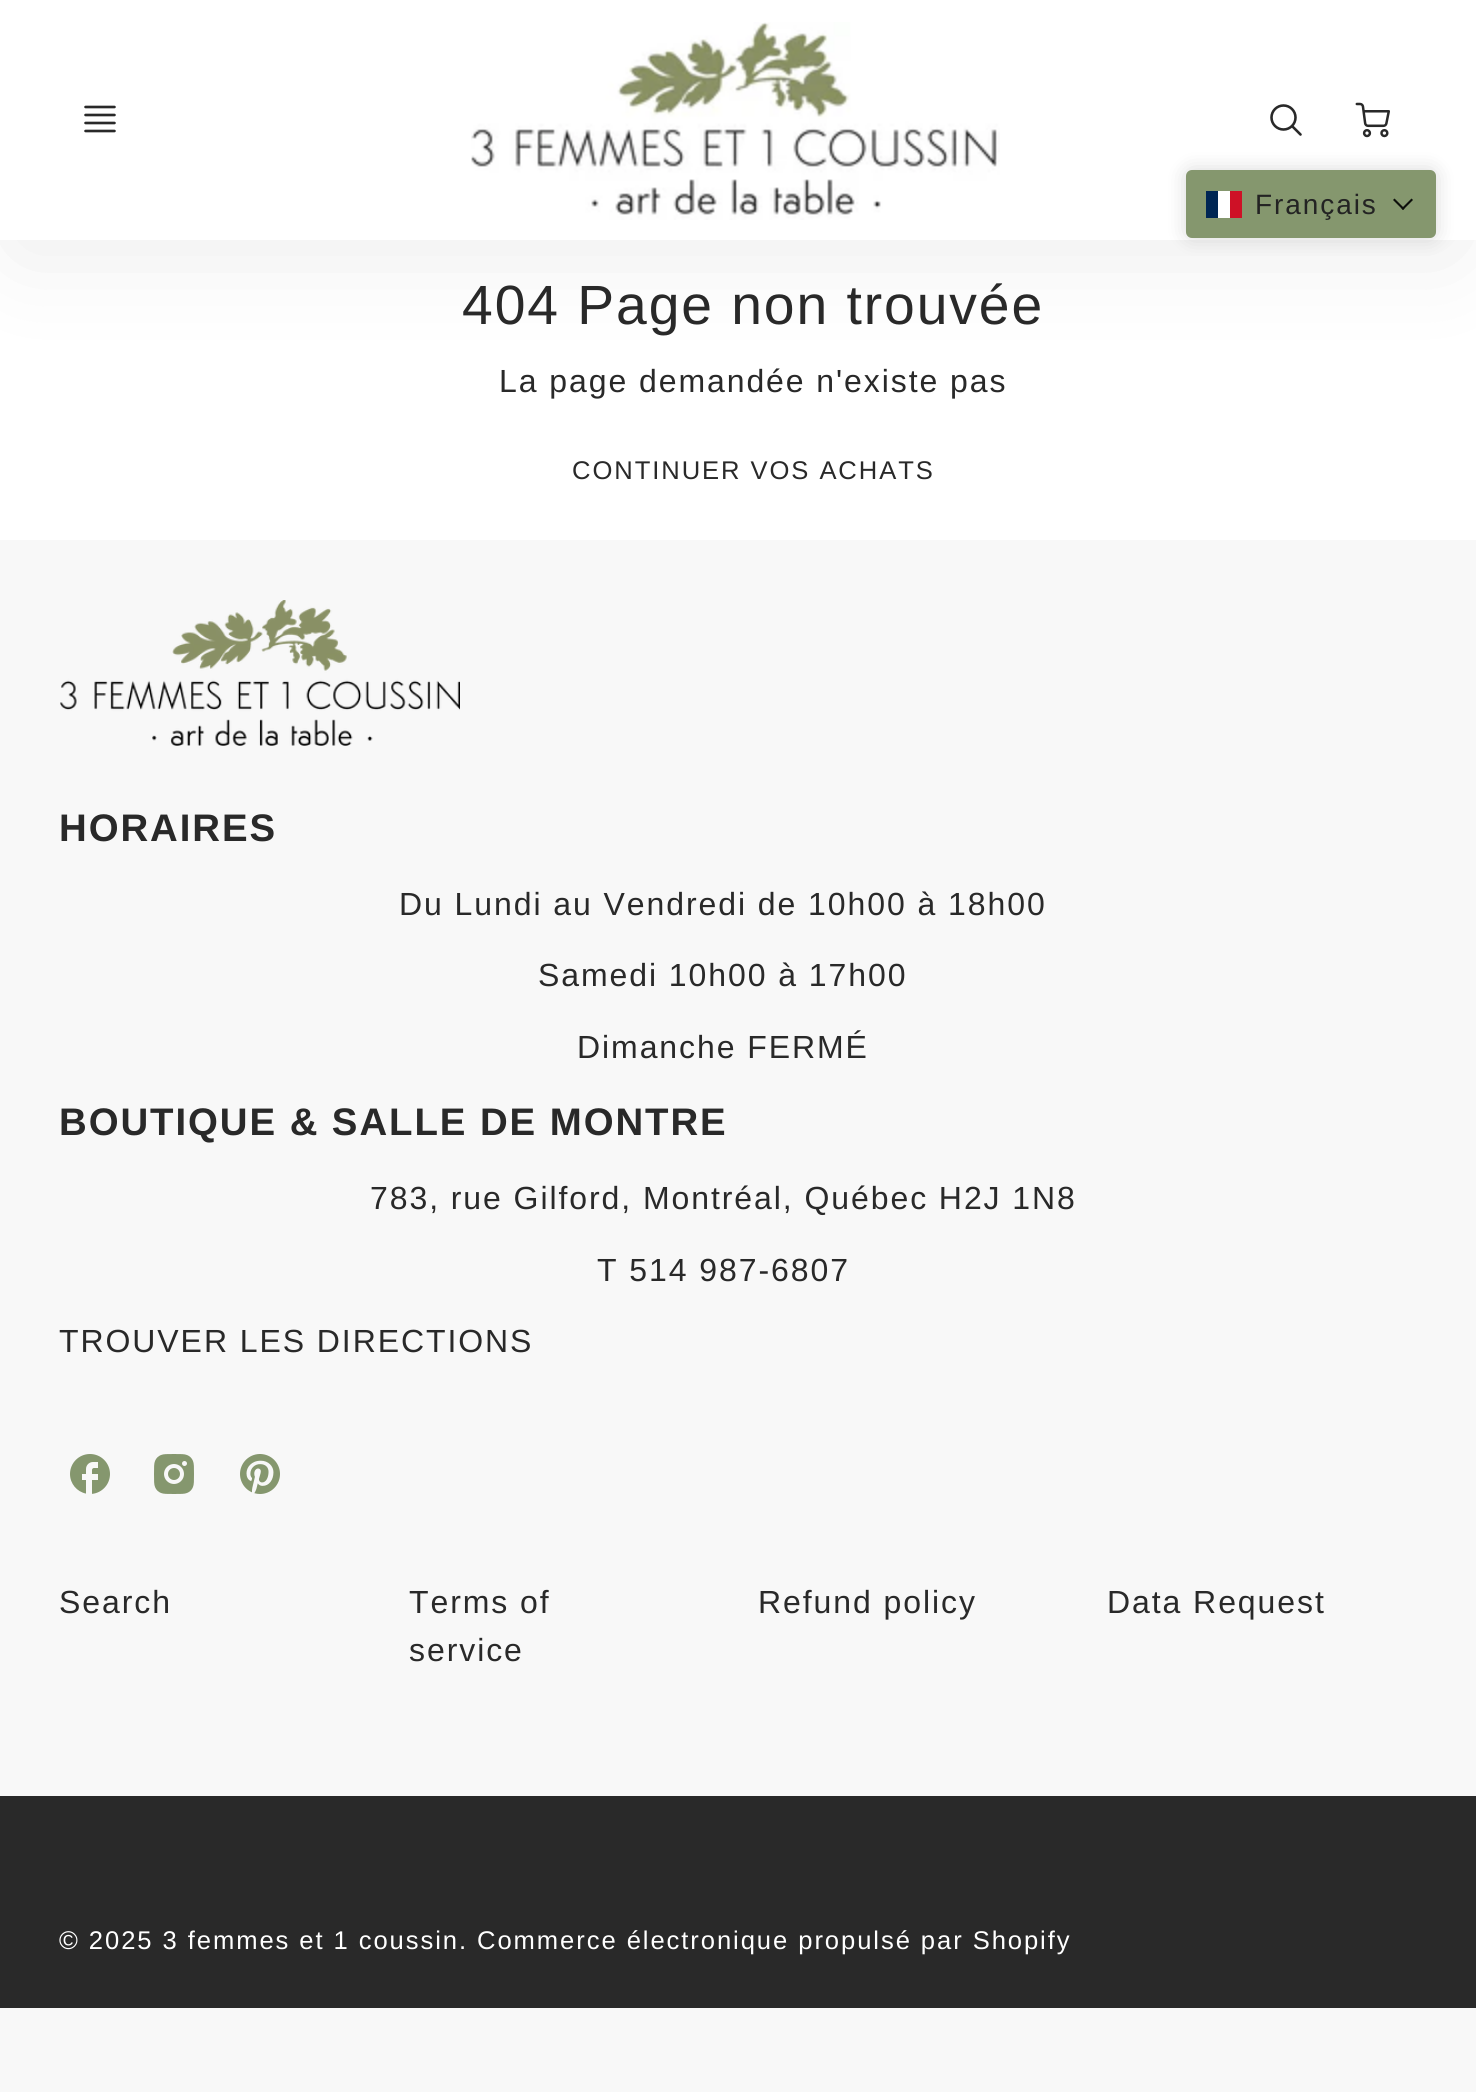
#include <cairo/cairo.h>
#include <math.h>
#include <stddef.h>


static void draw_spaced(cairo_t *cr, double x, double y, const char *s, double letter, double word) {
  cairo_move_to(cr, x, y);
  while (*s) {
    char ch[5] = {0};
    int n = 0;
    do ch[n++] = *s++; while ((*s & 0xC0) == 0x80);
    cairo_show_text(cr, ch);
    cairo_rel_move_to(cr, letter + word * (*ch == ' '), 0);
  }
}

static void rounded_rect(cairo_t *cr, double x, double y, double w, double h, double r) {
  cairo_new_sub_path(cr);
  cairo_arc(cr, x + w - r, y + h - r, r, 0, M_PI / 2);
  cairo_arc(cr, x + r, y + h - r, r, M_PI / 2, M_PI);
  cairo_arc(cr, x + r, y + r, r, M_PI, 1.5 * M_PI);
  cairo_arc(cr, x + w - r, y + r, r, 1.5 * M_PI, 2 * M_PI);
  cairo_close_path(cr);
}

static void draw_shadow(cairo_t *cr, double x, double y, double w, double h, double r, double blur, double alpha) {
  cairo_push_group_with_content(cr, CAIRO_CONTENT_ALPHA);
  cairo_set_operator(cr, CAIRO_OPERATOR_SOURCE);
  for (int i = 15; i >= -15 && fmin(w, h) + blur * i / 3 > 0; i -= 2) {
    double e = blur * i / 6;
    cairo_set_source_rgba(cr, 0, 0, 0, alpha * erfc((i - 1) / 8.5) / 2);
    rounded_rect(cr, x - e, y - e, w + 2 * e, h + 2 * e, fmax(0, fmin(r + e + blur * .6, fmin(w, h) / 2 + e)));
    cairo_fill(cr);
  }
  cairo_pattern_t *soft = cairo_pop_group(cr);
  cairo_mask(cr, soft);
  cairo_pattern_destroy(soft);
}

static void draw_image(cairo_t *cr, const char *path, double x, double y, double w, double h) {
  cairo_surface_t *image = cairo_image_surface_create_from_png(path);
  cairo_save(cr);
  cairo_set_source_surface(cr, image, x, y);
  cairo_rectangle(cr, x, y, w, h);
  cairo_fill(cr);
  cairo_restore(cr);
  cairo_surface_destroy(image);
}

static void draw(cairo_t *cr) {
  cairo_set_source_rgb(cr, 248 / 255.0, 248 / 255.0, 248 / 255.0);
  cairo_paint(cr);
  cairo_set_source_rgb(cr, 1, 1, 1);
  cairo_rectangle(cr, 0, 240, 1476, 300);
  cairo_fill(cr);
  cairo_set_source_rgb(cr, 41 / 255.0, 41 / 255.0, 41 / 255.0);
  draw_shadow(cr, 18, 48, 1436, 200, 0, 50, 0.1);
  cairo_set_source_rgb(cr, 1, 1, 1);
  cairo_rectangle(cr, 0, 0, 1476, 240);
  cairo_fill(cr);
  cairo_new_path(cr);
  cairo_move_to(cr, 114.5, 123);
  cairo_line_to(cr, 85.5, 123);
  cairo_move_to(cr, 114.5, 131);
  cairo_line_to(cr, 85.5, 131);
  cairo_move_to(cr, 114.5, 107);
  cairo_line_to(cr, 85.5, 107);
  cairo_move_to(cr, 114.5, 115);
  cairo_line_to(cr, 85.5, 115);
  cairo_set_source_rgb(cr, 41 / 255.0, 41 / 255.0, 41 / 255.0);
  cairo_set_line_width(cr, 2.6);
  cairo_set_line_cap(cr, CAIRO_LINE_CAP_ROUND);
  cairo_set_line_join(cr, CAIRO_LINE_JOIN_ROUND);
  cairo_stroke(cr);
  draw_image(cr, "images/1.png", 471, 22, 529, 198);
  cairo_arc(cr, 1283.5, 117.5, 12, 0, 2 * M_PI);
  cairo_set_line_cap(cr, CAIRO_LINE_CAP_BUTT);
  cairo_set_line_join(cr, CAIRO_LINE_JOIN_MITER);
  cairo_stroke(cr);
  cairo_new_path(cr);
  cairo_move_to(cr, 1300.5, 134.5);
  cairo_line_to(cr, 1292.5, 126.5);
  cairo_set_line_cap(cr, CAIRO_LINE_CAP_ROUND);
  cairo_set_line_join(cr, CAIRO_LINE_JOIN_ROUND);
  cairo_stroke(cr);
  draw_image(cr, "images/2.png", 1355, 102, 35, 36);
  cairo_set_source_rgb(cr, 0, 0, 0);
  draw_shadow(cr, 1186, 170, 250, 68, 6, 10, 0.15);
  cairo_set_source_rgb(cr, 133 / 255.0, 151 / 255.0, 110 / 255.0);
  rounded_rect(cr, 1186, 170, 250, 68, 6);
  cairo_fill(cr);
  cairo_set_source_rgb(cr, 1, 1, 1);
  cairo_rectangle(cr, 1218, 191, 12, 27);
  cairo_fill(cr);
  cairo_set_source_rgb(cr, 0, 38 / 255.0, 84 / 255.0);
  cairo_rectangle(cr, 1206, 191, 12, 27);
  cairo_fill(cr);
  cairo_set_source_rgb(cr, 206 / 255.0, 17 / 255.0, 38 / 255.0);
  cairo_rectangle(cr, 1230, 191, 12, 27);
  cairo_fill(cr);
  cairo_set_source_rgb(cr, 13 / 255.0, 15 / 255.0, 11 / 255.0);
  cairo_new_path(cr);
  cairo_move_to(cr, 1411.5, 198.5);
  cairo_line_to(cr, 1413, 200);
  cairo_line_to(cr, 1403, 210);
  cairo_line_to(cr, 1401.5, 208.5);
  cairo_close_path(cr);
  cairo_fill(cr);
  cairo_new_path(cr);
  cairo_move_to(cr, 1394.5, 198.5);
  cairo_line_to(cr, 1404.5, 208.5);
  cairo_line_to(cr, 1403, 210);
  cairo_line_to(cr, 1393, 200);
  cairo_close_path(cr);
  cairo_fill(cr);
  draw_image(cr, "images/3.png", 60, 600, 400, 146);
  draw_image(cr, "images/4.png", 70, 1454, 40, 40);
  draw_image(cr, "images/5.png", 154, 1454, 40, 40);
  draw_image(cr, "images/6.png", 240, 1454, 40, 40);
  cairo_set_source_rgb(cr, 41 / 255.0, 41 / 255.0, 41 / 255.0);
  cairo_rectangle(cr, 0, 1796, 1476, 212);
  cairo_fill(cr);
  cairo_select_font_face(cr, "Liberation Sans", CAIRO_FONT_SLANT_NORMAL, CAIRO_FONT_WEIGHT_NORMAL);
  cairo_set_font_size(cr, 28);
  cairo_set_source_rgb(cr, 35 / 255.0, 35 / 255.0, 35 / 255.0);
  draw_spaced(cr, 1255, 214, "Français", 1.92, 0);
  cairo_set_font_size(cr, 55.25);
  cairo_set_source_rgb(cr, 41 / 255.0, 41 / 255.0, 41 / 255.0);
  draw_spaced(cr, 462, 324, "404 Page non trouvée", 1.92, 0);
  cairo_set_font_size(cr, 32);
  draw_spaced(cr, 499, 392, "La page demandée n'existe pas", 1.92, 0);
  cairo_set_font_size(cr, 25.6);
  draw_spaced(cr, 572, 479, "CONTINUER VOS ACHATS", 1.92, 0);
  cairo_select_font_face(cr, "Liberation Sans", CAIRO_FONT_SLANT_NORMAL, CAIRO_FONT_WEIGHT_BOLD);
  cairo_set_font_size(cr, 38.4);
  draw_spaced(cr, 59, 841, "HORAIRES", 1.92, 0);
  cairo_select_font_face(cr, "Liberation Sans", CAIRO_FONT_SLANT_NORMAL, CAIRO_FONT_WEIGHT_NORMAL);
  cairo_set_font_size(cr, 32);
  draw_spaced(cr, 399, 915, "Du Lundi au Vendredi de 10h00 à 18h00", 1.92, 0);
  draw_spaced(cr, 538, 986, "Samedi 10h00 à 17h00", 1.92, 0);
  draw_spaced(cr, 577, 1058, "Dimanche FERMÉ", 1.92, 0);
  cairo_select_font_face(cr, "Liberation Sans", CAIRO_FONT_SLANT_NORMAL, CAIRO_FONT_WEIGHT_BOLD);
  cairo_set_font_size(cr, 38.4);
  draw_spaced(cr, 59, 1135, "BOUTIQUE & SALLE DE MONTRE", 1.92, 0);
  cairo_select_font_face(cr, "Liberation Sans", CAIRO_FONT_SLANT_NORMAL, CAIRO_FONT_WEIGHT_NORMAL);
  cairo_set_font_size(cr, 32);
  draw_spaced(cr, 370, 1209, "783, rue Gilford, Montréal, Québec H2J 1N8", 1.92, 0);
  draw_spaced(cr, 597, 1281, "T 514 987-6807", 1.92, 0);
  draw_spaced(cr, 59, 1352, "TROUVER LES DIRECTIONS", 1.92, 0);
  draw_spaced(cr, 59, 1613, "Search", 1.92, 0);
  draw_spaced(cr, 409, 1613, "Terms of", 1.92, 0);
  draw_spaced(cr, 409, 1661, "service", 1.92, 0);
  draw_spaced(cr, 758, 1613, "Refund policy", 1.92, 0);
  draw_spaced(cr, 1107, 1613, "Data Request", 1.92, 0);
  cairo_set_font_size(cr, 25.6);
  cairo_set_source_rgb(cr, 1, 1, 1);
  draw_spaced(cr, 59, 1949, "© 2025 3 femmes et 1 coussin. Commerce électronique propulsé par Shopify", 1.92, 0);
}

int main(void) {
  cairo_surface_t *surface = cairo_image_surface_create(CAIRO_FORMAT_RGB24, 1476, 2092);
  cairo_t *cr = cairo_create(surface);
  cairo_font_options_t *options = cairo_font_options_create();
  cairo_font_options_set_hint_metrics(options, CAIRO_HINT_METRICS_OFF);
  cairo_font_options_set_hint_style(options, CAIRO_HINT_STYLE_NONE);
  cairo_set_font_options(cr, options);
  cairo_set_miter_limit(cr, 4);
  draw(cr);
  cairo_surface_write_to_png(surface, "out.png");
  cairo_font_options_destroy(options);
  cairo_destroy(cr);
  cairo_surface_destroy(surface);
  return 0;
}
